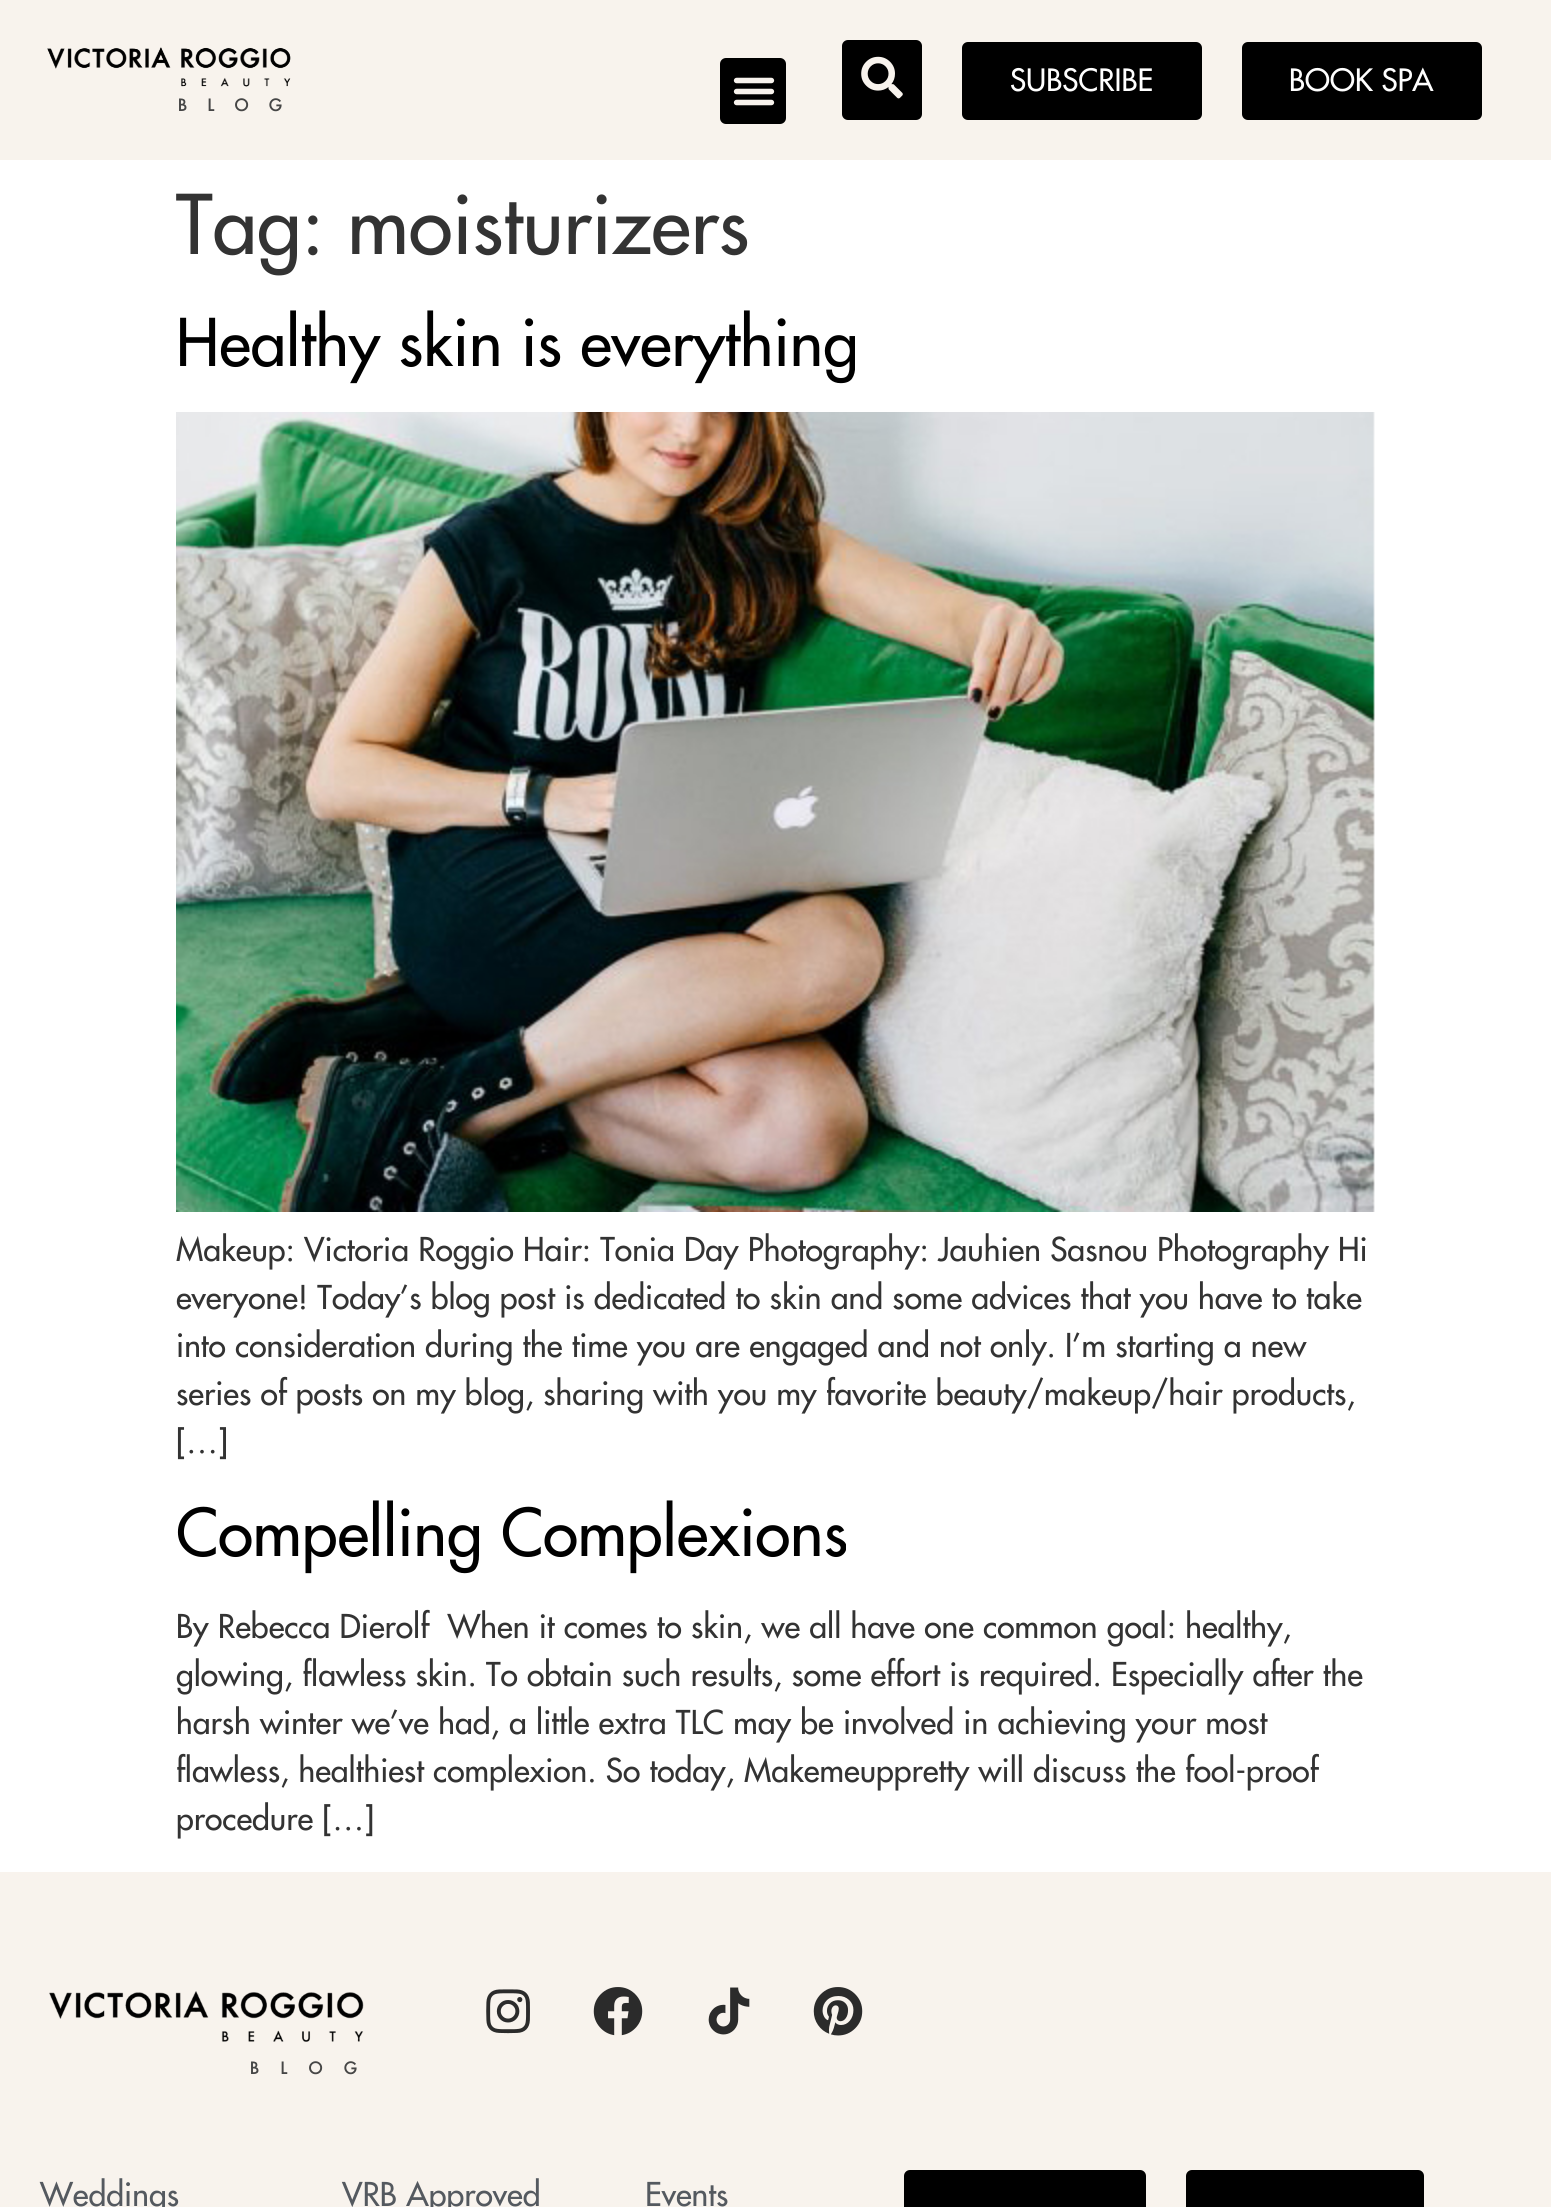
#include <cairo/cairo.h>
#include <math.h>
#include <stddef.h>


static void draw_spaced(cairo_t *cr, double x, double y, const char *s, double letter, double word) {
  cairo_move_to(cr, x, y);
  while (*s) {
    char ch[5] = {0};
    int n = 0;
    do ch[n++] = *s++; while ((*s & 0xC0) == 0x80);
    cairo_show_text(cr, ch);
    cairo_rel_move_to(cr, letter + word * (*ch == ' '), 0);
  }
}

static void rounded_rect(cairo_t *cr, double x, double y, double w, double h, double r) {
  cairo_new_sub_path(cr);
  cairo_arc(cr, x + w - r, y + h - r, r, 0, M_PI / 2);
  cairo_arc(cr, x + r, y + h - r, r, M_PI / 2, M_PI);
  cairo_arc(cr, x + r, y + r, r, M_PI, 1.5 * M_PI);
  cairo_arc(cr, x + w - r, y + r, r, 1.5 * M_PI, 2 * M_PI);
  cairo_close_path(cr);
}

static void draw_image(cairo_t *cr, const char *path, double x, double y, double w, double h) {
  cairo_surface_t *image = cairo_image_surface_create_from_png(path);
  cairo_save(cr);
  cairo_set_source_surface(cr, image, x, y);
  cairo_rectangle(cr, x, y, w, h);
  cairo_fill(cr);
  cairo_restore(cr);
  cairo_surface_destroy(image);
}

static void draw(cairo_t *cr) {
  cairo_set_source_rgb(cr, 1, 1, 1);
  cairo_paint(cr);
  cairo_set_source_rgb(cr, 248 / 255.0, 243 / 255.0, 237 / 255.0);
  cairo_rectangle(cr, 0, 0, 1551, 160);
  cairo_fill(cr);
  cairo_set_source_rgb(cr, 0, 0, 0);
  rounded_rect(cr, 720, 58, 66, 66, 6);
  cairo_fill(cr);
  draw_image(cr, "images/1.png", 733, 77, 42, 29);
  rounded_rect(cr, 842, 40, 80, 80, 6);
  cairo_fill(cr);
  draw_image(cr, "images/2.png", 861, 56, 42, 43);
  rounded_rect(cr, 962, 42, 240, 78, 6);
  cairo_fill(cr);
  rounded_rect(cr, 1242, 42, 240, 78, 6);
  cairo_fill(cr);
  draw_image(cr, "images/3.png", 47, 47, 244, 40);
  draw_image(cr, "images/4.png", 176, 412, 1199, 800);
  cairo_set_source_rgb(cr, 248 / 255.0, 243 / 255.0, 237 / 255.0);
  cairo_rectangle(cr, 0, 1872, 1551, 335);
  cairo_fill(cr);
  draw_image(cr, "images/5.png", 486, 1989, 44, 45);
  draw_image(cr, "images/6.png", 593, 1987, 50, 49);
  draw_image(cr, "images/7.png", 708, 1987, 42, 48);
  draw_image(cr, "images/8.png", 813, 1987, 50, 49);
  draw_image(cr, "images/9.png", 49, 1991, 315, 51);
  cairo_set_source_rgb(cr, 0, 0, 0);
  rounded_rect(cr, 904, 2170, 242, 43, 6);
  cairo_fill(cr);
  rounded_rect(cr, 1186, 2170, 238, 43, 6);
  cairo_fill(cr);
  cairo_select_font_face(cr, "Futura", CAIRO_FONT_SLANT_NORMAL, CAIRO_FONT_WEIGHT_NORMAL);
  cairo_set_font_size(cr, 30);
  cairo_set_source_rgb(cr, 1, 1, 1);
  cairo_move_to(cr, 1010, 91);
  cairo_show_text(cr, "SUBSCRIBE");
  cairo_move_to(cr, 1289, 91);
  cairo_show_text(cr, "BOOK SPA");
  cairo_select_font_face(cr, "Futura", CAIRO_FONT_SLANT_NORMAL, CAIRO_FONT_WEIGHT_BOLD);
  cairo_set_font_size(cr, 16);
  cairo_set_source_rgb(cr, 70 / 255.0, 70 / 255.0, 70 / 255.0);
  draw_spaced(cr, 178, 111, "BLOG", 21, 0);
  cairo_select_font_face(cr, "Futura", CAIRO_FONT_SLANT_NORMAL, CAIRO_FONT_WEIGHT_NORMAL);
  cairo_set_font_size(cr, 80);
  cairo_set_source_rgb(cr, 51 / 255.0, 51 / 255.0, 51 / 255.0);
  cairo_move_to(cr, 176, 254);
  cairo_show_text(cr, "Tag: moisturizers");
  cairo_set_font_size(cr, 64);
  cairo_set_source_rgb(cr, 0, 0, 0);
  cairo_move_to(cr, 176, 366);
  cairo_show_text(cr, "Healthy skin is everything");
  cairo_set_font_size(cr, 32);
  cairo_set_source_rgb(cr, 51 / 255.0, 51 / 255.0, 51 / 255.0);
  cairo_move_to(cr, 176, 1261);
  cairo_show_text(cr, "Makeup: Victoria Roggio Hair: Tonia Day Photography: Jauhien Sasnou Photography Hi");
  cairo_move_to(cr, 176, 1309);
  cairo_show_text(cr, "everyone! Today’s blog post is dedicated to skin and some advices that you have to take");
  cairo_move_to(cr, 176, 1357);
  cairo_show_text(cr, "into consideration during the time you are engaged and not only. I’m starting a new");
  cairo_move_to(cr, 176, 1405);
  cairo_show_text(cr, "series of posts on my blog, sharing with you my favorite beauty/makeup/hair products,");
  cairo_move_to(cr, 176, 1453);
  cairo_show_text(cr, "[…]");
  cairo_set_font_size(cr, 64);
  cairo_set_source_rgb(cr, 0, 0, 0);
  cairo_move_to(cr, 176, 1556);
  cairo_show_text(cr, "Compelling Complexions");
  cairo_set_font_size(cr, 32);
  cairo_set_source_rgb(cr, 51 / 255.0, 51 / 255.0, 51 / 255.0);
  cairo_move_to(cr, 176, 1638);
  cairo_show_text(cr, "By Rebecca Dierolf  When it comes to skin, we all have one common goal: healthy,");
  cairo_move_to(cr, 176, 1686);
  cairo_show_text(cr, "glowing, flawless skin. To obtain such results, some effort is required. Especially after the");
  cairo_move_to(cr, 176, 1734);
  cairo_show_text(cr, "harsh winter we’ve had, a little extra TLC may be involved in achieving your most");
  cairo_move_to(cr, 176, 1782);
  cairo_show_text(cr, "flawless, healthiest complexion. So today, Makemeuppretty will discuss the fool-proof");
  cairo_move_to(cr, 176, 1830);
  cairo_show_text(cr, "procedure […]");
  cairo_select_font_face(cr, "Futura", CAIRO_FONT_SLANT_NORMAL, CAIRO_FONT_WEIGHT_BOLD);
  cairo_set_font_size(cr, 16);
  cairo_set_source_rgb(cr, 70 / 255.0, 70 / 255.0, 70 / 255.0);
  draw_spaced(cr, 250, 2074, "BLOG", 22, 0);
  cairo_select_font_face(cr, "Futura", CAIRO_FONT_SLANT_NORMAL, CAIRO_FONT_WEIGHT_NORMAL);
  cairo_set_font_size(cr, 32);
  cairo_set_source_rgb(cr, 84 / 255.0, 89 / 255.0, 95 / 255.0);
  cairo_move_to(cr, 40, 2206);
  cairo_show_text(cr, "Weddings");
  cairo_move_to(cr, 342, 2206);
  cairo_show_text(cr, "VRB Approved");
  cairo_move_to(cr, 645, 2206);
  cairo_show_text(cr, "Events");
}

int main(void) {
  cairo_surface_t *surface = cairo_image_surface_create(CAIRO_FORMAT_RGB24, 1551, 2207);
  cairo_t *cr = cairo_create(surface);
  cairo_font_options_t *options = cairo_font_options_create();
  cairo_font_options_set_hint_metrics(options, CAIRO_HINT_METRICS_OFF);
  cairo_font_options_set_hint_style(options, CAIRO_HINT_STYLE_NONE);
  cairo_set_font_options(cr, options);
  cairo_set_miter_limit(cr, 4);
  draw(cr);
  cairo_surface_write_to_png(surface, "out.png");
  cairo_font_options_destroy(options);
  cairo_destroy(cr);
  cairo_surface_destroy(surface);
  return 0;
}
